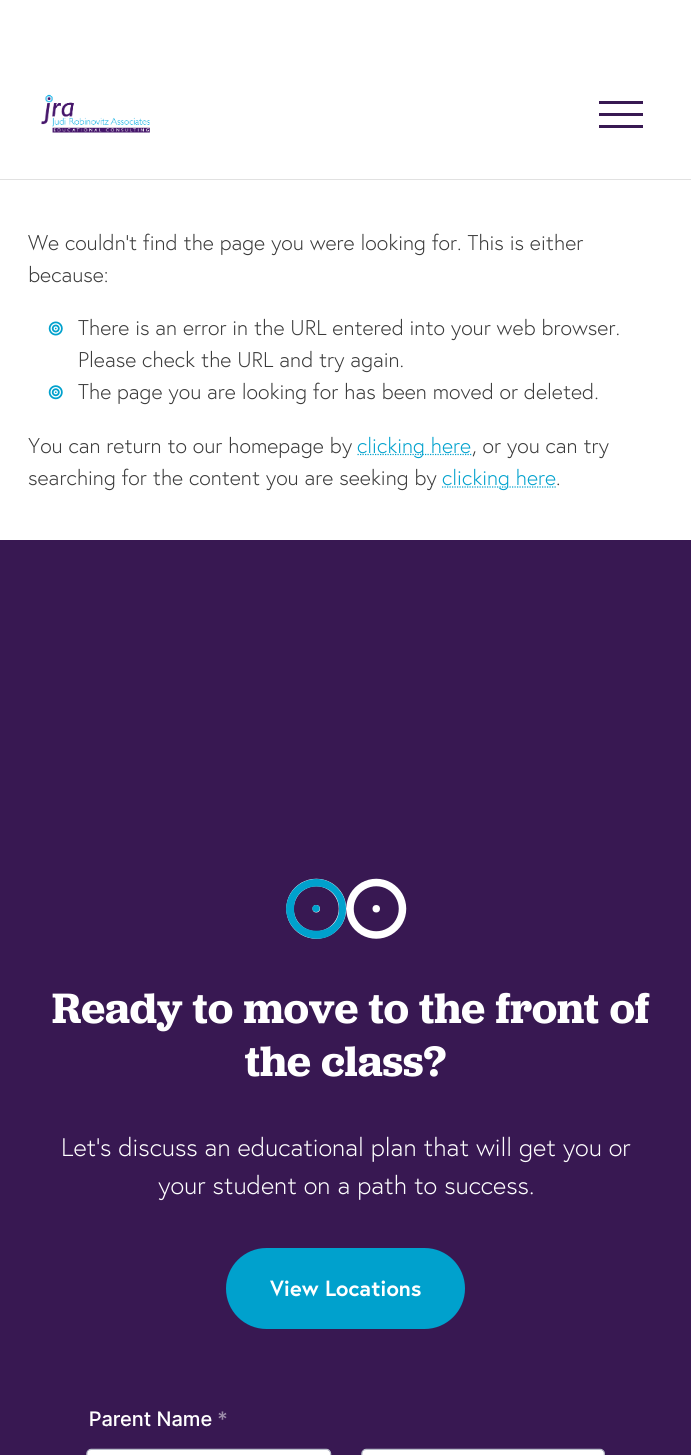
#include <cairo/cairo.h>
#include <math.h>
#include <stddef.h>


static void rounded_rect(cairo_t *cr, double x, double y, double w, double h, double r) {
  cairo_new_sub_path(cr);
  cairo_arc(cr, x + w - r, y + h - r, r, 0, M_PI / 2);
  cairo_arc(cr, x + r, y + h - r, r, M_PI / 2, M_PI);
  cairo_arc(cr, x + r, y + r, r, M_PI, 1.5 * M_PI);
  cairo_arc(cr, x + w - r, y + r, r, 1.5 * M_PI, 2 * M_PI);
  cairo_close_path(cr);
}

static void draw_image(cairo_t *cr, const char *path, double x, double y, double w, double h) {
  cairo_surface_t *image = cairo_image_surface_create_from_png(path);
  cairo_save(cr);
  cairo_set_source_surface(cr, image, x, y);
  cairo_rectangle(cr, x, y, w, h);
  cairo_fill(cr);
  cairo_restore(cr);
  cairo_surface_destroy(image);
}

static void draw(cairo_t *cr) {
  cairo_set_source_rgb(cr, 1, 1, 1);
  cairo_paint(cr);
  draw_image(cr, "images/1.png", 41, 94, 109, 39);
  cairo_set_source_rgb(cr, 56 / 255.0, 24 / 255.0, 82 / 255.0);
  cairo_rectangle(cr, 599, 101, 44, 3);
  cairo_fill(cr);
  cairo_rectangle(cr, 599, 113, 44, 3);
  cairo_fill(cr);
  cairo_rectangle(cr, 599, 125, 44, 3);
  cairo_fill(cr);
  cairo_set_source_rgb(cr, 225 / 255.0, 225 / 255.0, 225 / 255.0);
  cairo_rectangle(cr, 0, 179, 691, 1);
  cairo_fill(cr);
  draw_image(cr, "images/2.png", 48, 321, 15, 15);
  draw_image(cr, "images/3.png", 48, 385, 15, 15);
  cairo_new_path(cr);
  cairo_move_to(cr, 357.5, 454.5);
  cairo_line_to(cr, 471.5, 454.5);
  cairo_set_source_rgb(cr, 0, 161 / 255.0, 205 / 255.0);
  cairo_set_line_width(cr, 1.2);
  cairo_set_dash(cr, (double[]){1.25, 1.25}, 2, 0);
  cairo_stroke(cr);
  cairo_new_path(cr);
  cairo_move_to(cr, 442, 487);
  cairo_line_to(cr, 556.5, 487);
  cairo_stroke(cr);
  cairo_set_source_rgb(cr, 56 / 255.0, 24 / 255.0, 82 / 255.0);
  cairo_rectangle(cr, 0, 540, 691, 915);
  cairo_fill(cr);
  draw_image(cr, "images/4.png", 286, 878, 121, 61);
  cairo_set_source_rgb(cr, 0, 161 / 255.0, 205 / 255.0);
  cairo_new_path(cr);
  cairo_move_to(cr, 339, 909);
  cairo_curve_to(cr, 339, 879, 294, 879, 294, 909);
  cairo_curve_to(cr, 294, 938, 339, 938, 339, 909);
  cairo_close_path(cr);
  cairo_move_to(cr, 286, 909);
  cairo_curve_to(cr, 287, 880, 323, 868, 340, 891);
  cairo_curve_to(cr, 344, 896, 346, 902, 346, 909);
  cairo_curve_to(cr, 346, 915, 344, 922, 340, 927);
  cairo_curve_to(cr, 323, 950, 287, 937, 286, 909);
  cairo_close_path(cr);
  cairo_move_to(cr, 316, 905);
  cairo_curve_to(cr, 321, 905, 321, 912, 316, 912);
  cairo_curve_to(cr, 311, 912, 311, 905, 316, 905);
  cairo_close_path(cr);
  cairo_fill(cr);
  rounded_rect(cr, 226, 1248, 239, 81, 40.5);
  cairo_fill(cr);
  draw_image(cr, "images/5.png", 86, 1411, 519, 44);
  cairo_select_font_face(cr, "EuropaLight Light", CAIRO_FONT_SLANT_NORMAL, CAIRO_FONT_WEIGHT_NORMAL);
  cairo_set_font_size(cr, 21.35);
  cairo_set_source_rgb(cr, 58 / 255.0, 58 / 255.0, 58 / 255.0);
  cairo_move_to(cr, 28, 250);
  cairo_show_text(cr, "We couldn't find the page you were looking for. This is either");
  cairo_move_to(cr, 28, 282);
  cairo_show_text(cr, "because:");
  cairo_move_to(cr, 78, 335);
  cairo_show_text(cr, "There is an error in the URL entered into your web browser.");
  cairo_move_to(cr, 78, 367);
  cairo_show_text(cr, "Please check the URL and try again.");
  cairo_move_to(cr, 78, 399);
  cairo_show_text(cr, "The page you are looking for has been moved or deleted.");
  cairo_move_to(cr, 28, 453);
  cairo_show_text(cr, "You can return to our homepage by");
  cairo_set_source_rgb(cr, 0, 161 / 255.0, 205 / 255.0);
  cairo_move_to(cr, 357, 453);
  cairo_show_text(cr, "clicking here");
  cairo_set_source_rgb(cr, 58 / 255.0, 58 / 255.0, 58 / 255.0);
  cairo_move_to(cr, 472, 453);
  cairo_show_text(cr, ", or you can try");
  cairo_move_to(cr, 28, 485);
  cairo_show_text(cr, "searching for the content you are seeking by");
  cairo_set_source_rgb(cr, 0, 161 / 255.0, 205 / 255.0);
  cairo_move_to(cr, 442, 485);
  cairo_show_text(cr, "clicking here");
  cairo_set_source_rgb(cr, 58 / 255.0, 58 / 255.0, 58 / 255.0);
  cairo_move_to(cr, 556, 485);
  cairo_show_text(cr, ".");
  cairo_select_font_face(cr, "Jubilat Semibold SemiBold", CAIRO_FONT_SLANT_NORMAL, CAIRO_FONT_WEIGHT_NORMAL);
  cairo_set_font_size(cr, 44.25);
  cairo_set_source_rgb(cr, 1, 1, 1);
  cairo_move_to(cr, 52, 1023);
  cairo_show_text(cr, "Ready to move to the front of");
  cairo_move_to(cr, 245, 1076);
  cairo_show_text(cr, "the class?");
  cairo_select_font_face(cr, "EuropaLight Light", CAIRO_FONT_SLANT_NORMAL, CAIRO_FONT_WEIGHT_NORMAL);
  cairo_set_font_size(cr, 25.4);
  cairo_move_to(cr, 61, 1156);
  cairo_show_text(cr, "Let's discuss an educational plan that will get you or");
  cairo_move_to(cr, 158, 1194);
  cairo_show_text(cr, "your student on a path to success.");
  cairo_select_font_face(cr, "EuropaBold", CAIRO_FONT_SLANT_NORMAL, CAIRO_FONT_WEIGHT_BOLD);
  cairo_set_font_size(cr, 22);
  cairo_move_to(cr, 270, 1296);
  cairo_show_text(cr, "View Locations");
}

int main(void) {
  cairo_surface_t *surface = cairo_image_surface_create(CAIRO_FORMAT_RGB24, 691, 1455);
  cairo_t *cr = cairo_create(surface);
  cairo_font_options_t *options = cairo_font_options_create();
  cairo_font_options_set_hint_metrics(options, CAIRO_HINT_METRICS_OFF);
  cairo_font_options_set_hint_style(options, CAIRO_HINT_STYLE_NONE);
  cairo_set_font_options(cr, options);
  cairo_set_miter_limit(cr, 4);
  draw(cr);
  cairo_surface_write_to_png(surface, "out.png");
  cairo_font_options_destroy(options);
  cairo_destroy(cr);
  cairo_surface_destroy(surface);
  return 0;
}
